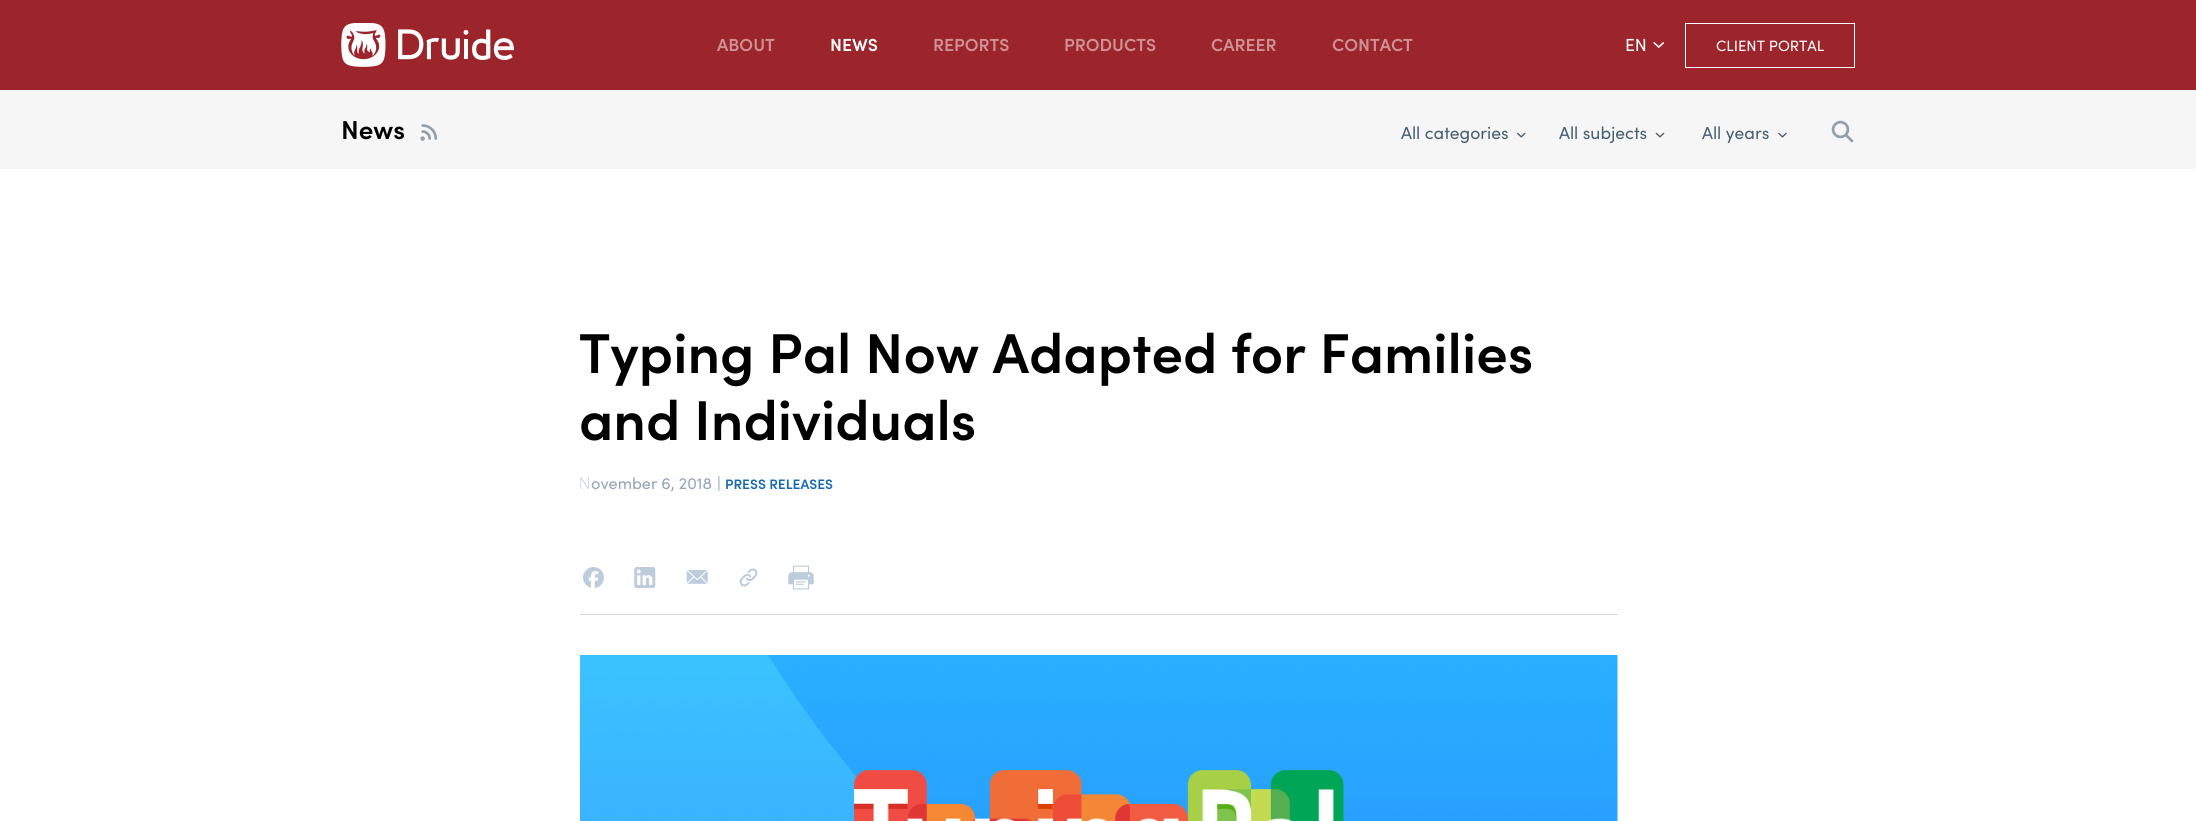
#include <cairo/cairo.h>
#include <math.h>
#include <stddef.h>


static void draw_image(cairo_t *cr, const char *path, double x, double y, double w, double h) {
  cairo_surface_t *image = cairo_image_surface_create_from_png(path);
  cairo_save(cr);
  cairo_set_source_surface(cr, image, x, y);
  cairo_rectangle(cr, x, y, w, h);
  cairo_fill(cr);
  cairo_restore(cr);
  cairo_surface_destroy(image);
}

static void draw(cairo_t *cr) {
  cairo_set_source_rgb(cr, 1, 1, 1);
  cairo_paint(cr);
  cairo_set_source_rgb(cr, 156 / 255.0, 37 / 255.0, 43 / 255.0);
  cairo_rectangle(cr, 0, 0, 2196, 90);
  cairo_fill(cr);
  draw_image(cr, "images/1.png", 341, 23, 173, 44);
  draw_image(cr, "images/2.png", 1653, 42, 11, 6);
  cairo_rectangle(cr, 1685.5, 23.5, 169, 44);
  cairo_set_source_rgb(cr, 1, 1, 1);
  cairo_set_line_width(cr, 1);
  cairo_stroke(cr);
  cairo_set_source_rgb(cr, 246 / 255.0, 246 / 255.0, 246 / 255.0);
  cairo_rectangle(cr, 0, 90, 2196, 79);
  cairo_fill(cr);
  draw_image(cr, "images/3.png", 420, 124, 18, 17);
  draw_image(cr, "images/4.png", 1516, 132, 10, 6);
  draw_image(cr, "images/5.png", 1655, 132, 10, 6);
  draw_image(cr, "images/6.png", 1778, 132, 9, 6);
  draw_image(cr, "images/7.png", 1831, 120, 23, 23);
  cairo_set_source_rgb(cr, 216 / 255.0, 216 / 255.0, 216 / 255.0);
  cairo_rectangle(cr, 580, 614, 1038, 1);
  cairo_fill(cr);
  draw_image(cr, "images/8.png", 583, 567, 21, 21);
  draw_image(cr, "images/9.png", 634, 567, 22, 21);
  draw_image(cr, "images/10.png", 686, 570, 22, 14);
  draw_image(cr, "images/11.png", 739, 568, 19, 19);
  draw_image(cr, "images/12.png", 788, 565, 26, 25);
  draw_image(cr, "images/13.png", 580, 655, 1038, 166);
  cairo_select_font_face(cr, "Sofia SemiBold", CAIRO_FONT_SLANT_NORMAL, CAIRO_FONT_WEIGHT_NORMAL);
  cairo_set_font_size(cr, 17.5);
  cairo_set_source_rgb(cr, 206 / 255.0, 146 / 255.0, 149 / 255.0);
  cairo_move_to(cr, 717, 51);
  cairo_show_text(cr, "ABOUT");
  cairo_set_source_rgb(cr, 1, 1, 1);
  cairo_move_to(cr, 830, 51);
  cairo_show_text(cr, "NEWS");
  cairo_set_source_rgb(cr, 206 / 255.0, 146 / 255.0, 149 / 255.0);
  cairo_move_to(cr, 933, 51);
  cairo_show_text(cr, "REPORTS");
  cairo_move_to(cr, 1064, 51);
  cairo_show_text(cr, "PRODUCTS");
  cairo_move_to(cr, 1211, 51);
  cairo_show_text(cr, "CAREER");
  cairo_move_to(cr, 1332, 51);
  cairo_show_text(cr, "CONTACT");
  cairo_select_font_face(cr, "Sofia", CAIRO_FONT_SLANT_NORMAL, CAIRO_FONT_WEIGHT_NORMAL);
  cairo_set_source_rgb(cr, 1, 1, 1);
  cairo_move_to(cr, 1625, 51);
  cairo_show_text(cr, "EN");
  cairo_set_font_size(cr, 15);
  cairo_move_to(cr, 1716, 51);
  cairo_show_text(cr, "CLIENT PORTAL");
  cairo_select_font_face(cr, "Sofia SemiBold", CAIRO_FONT_SLANT_NORMAL, CAIRO_FONT_WEIGHT_NORMAL);
  cairo_set_font_size(cr, 26);
  cairo_set_source_rgb(cr, 0, 0, 0);
  cairo_move_to(cr, 341, 139);
  cairo_show_text(cr, "News");
  cairo_select_font_face(cr, "Sofia", CAIRO_FONT_SLANT_NORMAL, CAIRO_FONT_WEIGHT_NORMAL);
  cairo_set_font_size(cr, 17.5);
  cairo_set_source_rgb(cr, 73 / 255.0, 97 / 255.0, 116 / 255.0);
  cairo_move_to(cr, 1401, 139);
  cairo_show_text(cr, "All categories");
  cairo_move_to(cr, 1559, 139);
  cairo_show_text(cr, "All subjects");
  cairo_move_to(cr, 1702, 139);
  cairo_show_text(cr, "All years");
  cairo_select_font_face(cr, "Sofia SemiBold", CAIRO_FONT_SLANT_NORMAL, CAIRO_FONT_WEIGHT_NORMAL);
  cairo_set_font_size(cr, 56.25);
  cairo_set_source_rgb(cr, 0, 0, 0);
  cairo_move_to(cr, 579, 373);
  cairo_show_text(cr, "Typing Pal Now Adapted for Families");
  cairo_move_to(cr, 579, 440);
  cairo_show_text(cr, "and Individuals");
  cairo_select_font_face(cr, "Noto Sans Thin", CAIRO_FONT_SLANT_NORMAL, CAIRO_FONT_WEIGHT_NORMAL);
  cairo_set_font_size(cr, 16.25);
  cairo_set_source_rgb(cr, 150 / 255.0, 165 / 255.0, 186 / 255.0);
  cairo_move_to(cr, 579, 489);
  cairo_show_text(cr, "N");
  cairo_select_font_face(cr, "Sofia", CAIRO_FONT_SLANT_NORMAL, CAIRO_FONT_WEIGHT_NORMAL);
  cairo_move_to(cr, 591, 489);
  cairo_show_text(cr, "ovember 6, 2018");
  cairo_move_to(cr, 717, 489);
  cairo_show_text(cr, "|");
  cairo_select_font_face(cr, "Sofia SemiBold", CAIRO_FONT_SLANT_NORMAL, CAIRO_FONT_WEIGHT_NORMAL);
  cairo_set_font_size(cr, 13.75);
  cairo_set_source_rgb(cr, 22 / 255.0, 105 / 255.0, 174 / 255.0);
  cairo_move_to(cr, 725, 489);
  cairo_show_text(cr, "PRESS RELEASES");
}

int main(void) {
  cairo_surface_t *surface = cairo_image_surface_create(CAIRO_FORMAT_RGB24, 2196, 821);
  cairo_t *cr = cairo_create(surface);
  cairo_font_options_t *options = cairo_font_options_create();
  cairo_font_options_set_hint_metrics(options, CAIRO_HINT_METRICS_OFF);
  cairo_font_options_set_hint_style(options, CAIRO_HINT_STYLE_NONE);
  cairo_set_font_options(cr, options);
  cairo_set_miter_limit(cr, 4);
  draw(cr);
  cairo_surface_write_to_png(surface, "out.png");
  cairo_font_options_destroy(options);
  cairo_destroy(cr);
  cairo_surface_destroy(surface);
  return 0;
}
